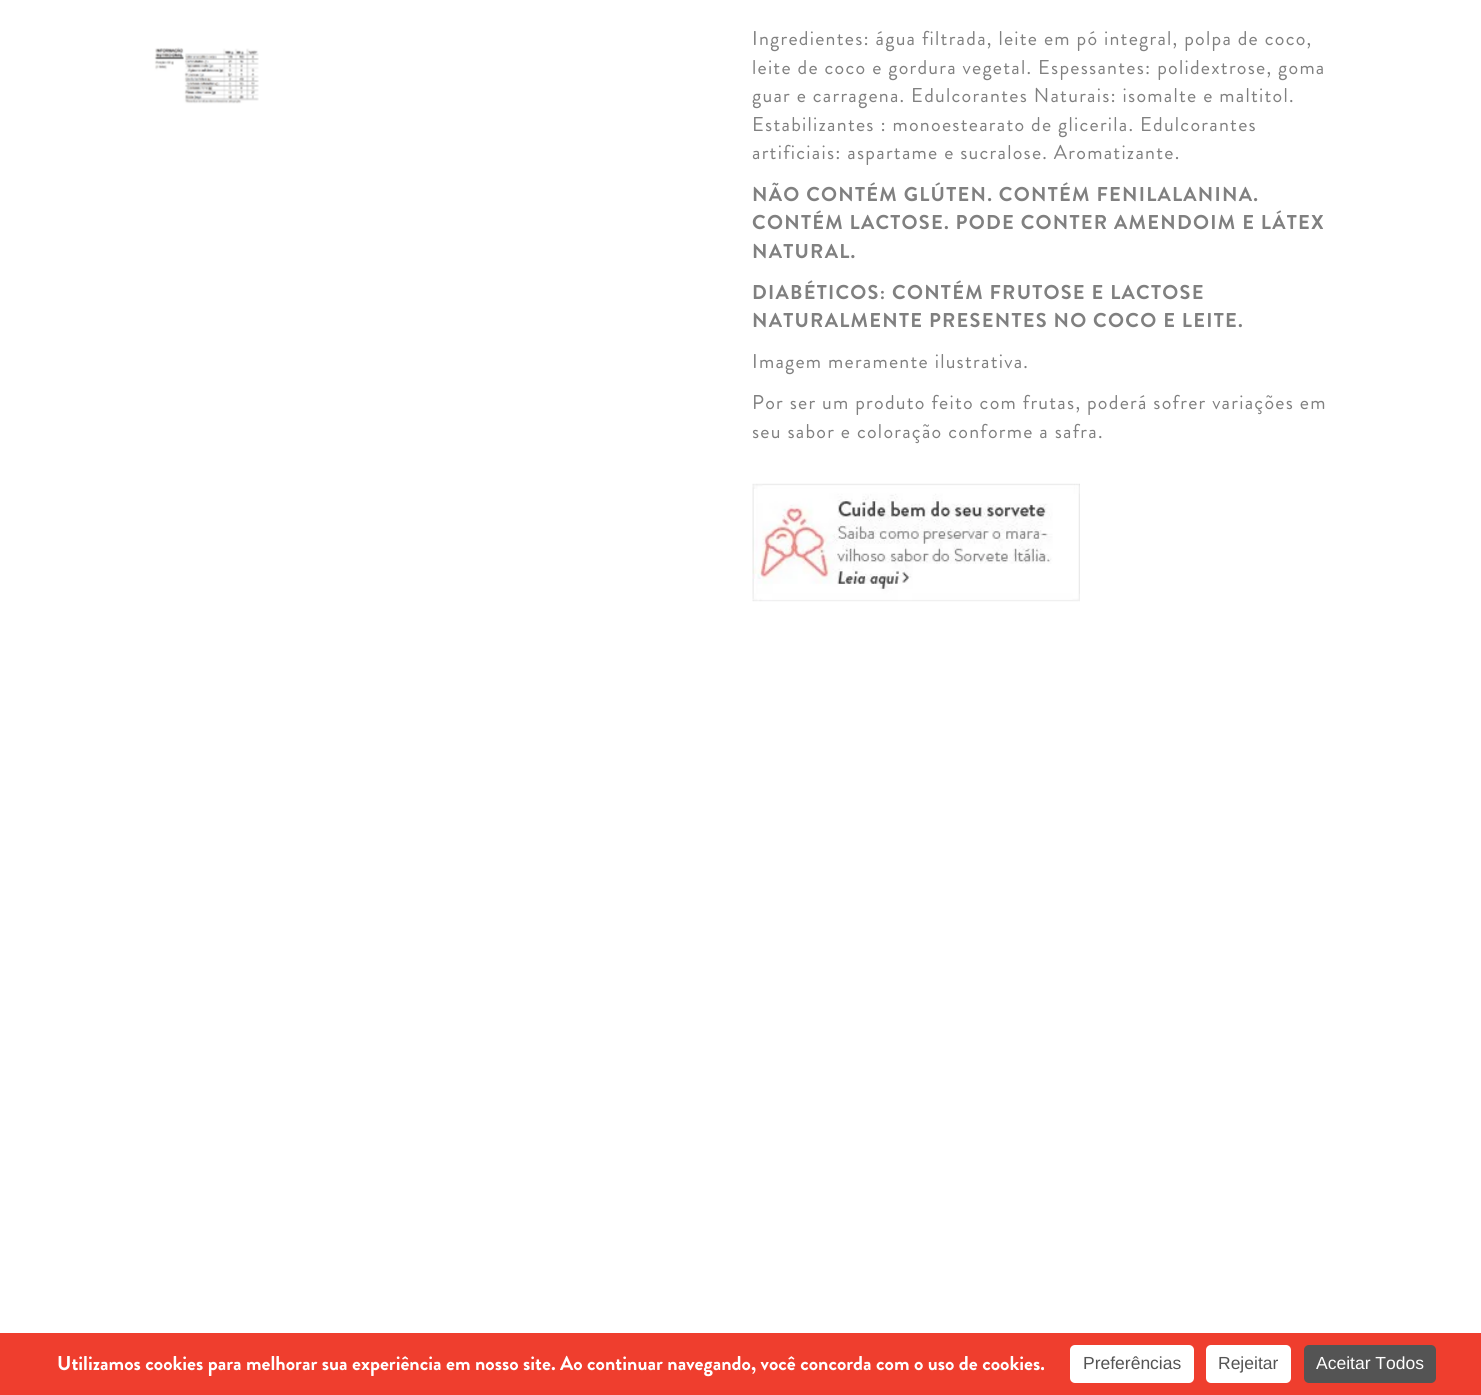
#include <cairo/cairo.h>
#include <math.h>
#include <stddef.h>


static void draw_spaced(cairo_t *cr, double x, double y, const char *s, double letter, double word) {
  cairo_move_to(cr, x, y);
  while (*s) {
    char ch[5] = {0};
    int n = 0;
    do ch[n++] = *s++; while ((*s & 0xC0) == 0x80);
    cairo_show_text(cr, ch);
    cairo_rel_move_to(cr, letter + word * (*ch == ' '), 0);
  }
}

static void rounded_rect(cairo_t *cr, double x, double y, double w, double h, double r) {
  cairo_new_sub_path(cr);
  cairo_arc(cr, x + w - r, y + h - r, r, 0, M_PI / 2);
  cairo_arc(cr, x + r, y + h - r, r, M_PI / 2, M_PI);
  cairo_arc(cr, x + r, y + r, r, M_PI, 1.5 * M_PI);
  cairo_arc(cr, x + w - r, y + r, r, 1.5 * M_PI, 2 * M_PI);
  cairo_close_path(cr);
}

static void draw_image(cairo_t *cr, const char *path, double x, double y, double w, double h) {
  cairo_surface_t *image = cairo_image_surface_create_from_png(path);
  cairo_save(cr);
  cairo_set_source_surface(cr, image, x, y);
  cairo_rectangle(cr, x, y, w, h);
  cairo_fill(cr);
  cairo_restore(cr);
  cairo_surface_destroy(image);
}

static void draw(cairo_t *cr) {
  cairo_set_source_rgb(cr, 1, 1, 1);
  cairo_paint(cr);
  draw_image(cr, "images/1.png", 154, 47, 105, 57);
  draw_image(cr, "images/2.png", 752, 483, 328, 119);
  cairo_set_source_rgb(cr, 239 / 255.0, 62 / 255.0, 46 / 255.0);
  cairo_rectangle(cr, 0, 1333, 1481, 62);
  cairo_fill(cr);
  cairo_set_source_rgb(cr, 1, 1, 1);
  rounded_rect(cr, 1070, 1345, 124, 38, 5);
  cairo_fill(cr);
  rounded_rect(cr, 1206, 1345, 85, 38, 5);
  cairo_fill(cr);
  cairo_set_source_rgb(cr, 84 / 255.0, 84 / 255.0, 84 / 255.0);
  rounded_rect(cr, 1304, 1345, 132, 38, 5);
  cairo_fill(cr);
  cairo_select_font_face(cr, "Brandon Grotesque", CAIRO_FONT_SLANT_NORMAL, CAIRO_FONT_WEIGHT_NORMAL);
  cairo_set_font_size(cr, 20);
  cairo_set_source_rgb(cr, 128 / 255.0, 128 / 255.0, 128 / 255.0);
  draw_spaced(cr, 752, 45, "Ingredientes: água filtrada, leite em pó integral, polpa de coco,", 1.25, 0);
  draw_spaced(cr, 752, 74, "leite de coco e gordura vegetal. Espessantes: polidextrose, goma", 1.25, 0);
  draw_spaced(cr, 752, 102, "guar e carragena. Edulcorantes Naturais: isomalte e maltitol.", 1.25, 0);
  draw_spaced(cr, 752, 131, "Estabilizantes : monoestearato de glicerila. Edulcorantes", 1.25, 0);
  draw_spaced(cr, 752, 159, "artificiais: aspartame e sucralose. Aromatizante.", 1.25, 0);
  cairo_select_font_face(cr, "Brandon Grotesque", CAIRO_FONT_SLANT_NORMAL, CAIRO_FONT_WEIGHT_BOLD);
  draw_spaced(cr, 752, 201, "NÃO CONTÉM GLÚTEN. CONTÉM FENILALANINA.", 1.25, 0);
  draw_spaced(cr, 752, 229, "CONTÉM LACTOSE. PODE CONTER AMENDOIM E LÁTEX", 1.25, 0);
  draw_spaced(cr, 752, 258, "NATURAL.", 1.25, 0);
  draw_spaced(cr, 752, 299, "DIABÉTICOS: CONTÉM FRUTOSE E LACTOSE", 1.25, 0);
  draw_spaced(cr, 752, 327, "NATURALMENTE PRESENTES NO COCO E LEITE.", 1.25, 0);
  cairo_select_font_face(cr, "Brandon Grotesque", CAIRO_FONT_SLANT_NORMAL, CAIRO_FONT_WEIGHT_NORMAL);
  draw_spaced(cr, 752, 368, "Imagem meramente ilustrativa.", 1.25, 0);
  draw_spaced(cr, 752, 409, "Por ser um produto feito com frutas, poderá sofrer variações em", 1.25, 0);
  draw_spaced(cr, 752, 438, "seu sabor e coloração conforme a safra.", 1.25, 0);
  cairo_select_font_face(cr, "Brandon Grotesque", CAIRO_FONT_SLANT_NORMAL, CAIRO_FONT_WEIGHT_BOLD);
  cairo_set_source_rgb(cr, 1, 1, 1);
  cairo_move_to(cr, 57, 1370);
  cairo_show_text(cr, "Utilizamos cookies para melhorar sua experiência em nosso site. Ao continuar navegando, você concorda com o uso de cookies.");
  cairo_select_font_face(cr, "Liberation Sans", CAIRO_FONT_SLANT_NORMAL, CAIRO_FONT_WEIGHT_NORMAL);
  cairo_set_font_size(cr, 17.5);
  cairo_set_source_rgb(cr, 84 / 255.0, 84 / 255.0, 84 / 255.0);
  cairo_move_to(cr, 1083, 1369);
  cairo_show_text(cr, "Preferências");
  cairo_move_to(cr, 1218, 1369);
  cairo_show_text(cr, "Rejeitar");
  cairo_set_source_rgb(cr, 1, 1, 1);
  cairo_move_to(cr, 1316, 1369);
  cairo_show_text(cr, "Aceitar Todos");
}

int main(void) {
  cairo_surface_t *surface = cairo_image_surface_create(CAIRO_FORMAT_RGB24, 1481, 1395);
  cairo_t *cr = cairo_create(surface);
  cairo_font_options_t *options = cairo_font_options_create();
  cairo_font_options_set_hint_metrics(options, CAIRO_HINT_METRICS_OFF);
  cairo_font_options_set_hint_style(options, CAIRO_HINT_STYLE_NONE);
  cairo_set_font_options(cr, options);
  cairo_set_miter_limit(cr, 4);
  draw(cr);
  cairo_surface_write_to_png(surface, "out.png");
  cairo_font_options_destroy(options);
  cairo_destroy(cr);
  cairo_surface_destroy(surface);
  return 0;
}
